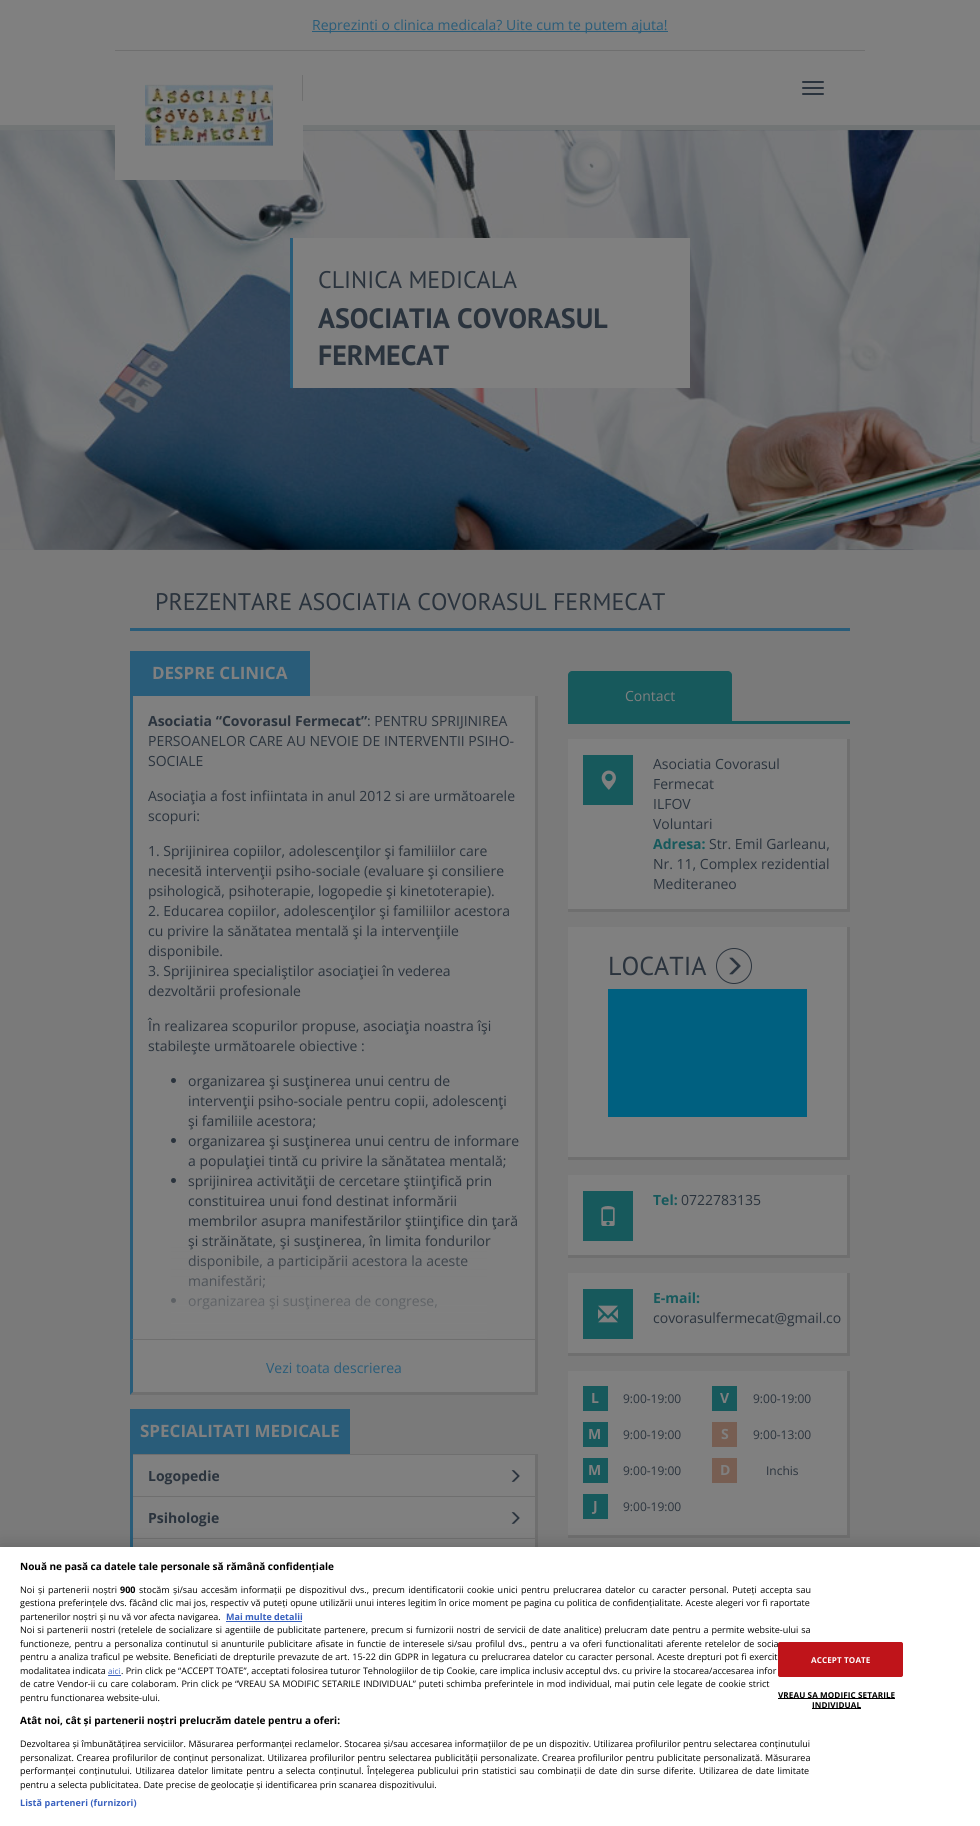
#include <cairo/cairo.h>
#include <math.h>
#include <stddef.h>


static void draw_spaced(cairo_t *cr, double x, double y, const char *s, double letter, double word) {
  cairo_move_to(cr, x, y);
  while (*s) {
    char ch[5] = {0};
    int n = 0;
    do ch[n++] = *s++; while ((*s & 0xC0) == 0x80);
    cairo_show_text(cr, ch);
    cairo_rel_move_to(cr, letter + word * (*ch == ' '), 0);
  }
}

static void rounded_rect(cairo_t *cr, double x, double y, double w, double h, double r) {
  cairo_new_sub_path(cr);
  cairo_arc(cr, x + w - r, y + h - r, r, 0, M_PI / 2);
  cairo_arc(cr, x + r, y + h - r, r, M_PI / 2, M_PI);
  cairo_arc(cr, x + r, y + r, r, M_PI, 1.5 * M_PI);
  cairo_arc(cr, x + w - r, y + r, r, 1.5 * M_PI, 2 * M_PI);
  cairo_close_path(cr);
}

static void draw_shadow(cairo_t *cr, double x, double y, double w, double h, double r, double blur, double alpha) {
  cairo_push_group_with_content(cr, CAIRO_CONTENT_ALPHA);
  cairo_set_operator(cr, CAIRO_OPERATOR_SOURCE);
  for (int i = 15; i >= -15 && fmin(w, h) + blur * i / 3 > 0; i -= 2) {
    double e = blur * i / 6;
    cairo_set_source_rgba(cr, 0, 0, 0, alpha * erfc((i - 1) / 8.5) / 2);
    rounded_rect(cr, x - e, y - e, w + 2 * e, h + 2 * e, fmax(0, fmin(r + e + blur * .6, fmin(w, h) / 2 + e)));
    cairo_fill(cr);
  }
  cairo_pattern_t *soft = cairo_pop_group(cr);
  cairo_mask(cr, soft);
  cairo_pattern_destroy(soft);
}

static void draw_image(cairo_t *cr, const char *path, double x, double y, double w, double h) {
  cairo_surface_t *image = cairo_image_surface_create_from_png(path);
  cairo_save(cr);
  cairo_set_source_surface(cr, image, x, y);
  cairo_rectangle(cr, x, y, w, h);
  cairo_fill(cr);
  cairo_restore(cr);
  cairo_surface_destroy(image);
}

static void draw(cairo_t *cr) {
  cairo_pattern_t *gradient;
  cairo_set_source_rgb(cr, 122 / 255.0, 122 / 255.0, 122 / 255.0);
  cairo_paint(cr);
  cairo_set_source_rgb(cr, 128 / 255.0, 128 / 255.0, 128 / 255.0);
  cairo_rectangle(cr, 0, 0, 980, 125);
  cairo_fill(cr);
  cairo_set_source_rgb(cr, 114 / 255.0, 117 / 255.0, 117 / 255.0);
  cairo_rectangle(cr, 0, 125, 980, 5);
  cairo_fill(cr);
  cairo_set_source_rgb(cr, 111 / 255.0, 111 / 255.0, 111 / 255.0);
  cairo_rectangle(cr, 115, 50, 750, 1);
  cairo_fill(cr);
  cairo_set_source_rgb(cr, 41 / 255.0, 92 / 255.0, 121 / 255.0);
  cairo_rectangle(cr, 312, 31, 356, 1);
  cairo_fill(cr);
  draw_image(cr, "images/2.png", 0, 130, 980, 420);
  cairo_set_source_rgb(cr, 128 / 255.0, 128 / 255.0, 128 / 255.0);
  cairo_rectangle(cr, 115, 125, 188, 55);
  cairo_fill(cr);
  draw_image(cr, "images/1.png", 145, 84, 128, 62);
  cairo_set_source_rgb(cr, 111 / 255.0, 111 / 255.0, 111 / 255.0);
  cairo_rectangle(cr, 302, 75, 1, 26);
  cairo_fill(cr);
  cairo_set_source_rgb(cr, 42 / 255.0, 51 / 255.0, 61 / 255.0);
  rounded_rect(cr, 802, 81, 22, 2, 1);
  cairo_fill(cr);
  rounded_rect(cr, 802, 87, 22, 2, 1);
  cairo_fill(cr);
  rounded_rect(cr, 802, 93, 22, 2, 1);
  cairo_fill(cr);
  cairo_set_source_rgb(cr, 128 / 255.0, 128 / 255.0, 128 / 255.0);
  cairo_rectangle(cr, 293, 238, 397, 150);
  cairo_fill(cr);
  cairo_set_source_rgb(cr, 41 / 255.0, 92 / 255.0, 121 / 255.0);
  cairo_rectangle(cr, 290, 238, 3, 150);
  cairo_fill(cr);
  cairo_rectangle(cr, 130, 628, 720, 3);
  cairo_fill(cr);
  cairo_rectangle(cr, 130, 651, 180, 45);
  cairo_fill(cr);
  cairo_set_source_rgb(cr, 128 / 255.0, 128 / 255.0, 128 / 255.0);
  cairo_rectangle(cr, 133, 696, 402, 643);
  cairo_fill(cr);
  cairo_set_source_rgb(cr, 111 / 255.0, 111 / 255.0, 111 / 255.0);
  cairo_rectangle(cr, 535, 696, 3, 643);
  cairo_fill(cr);
  cairo_save(cr);
  cairo_rectangle(cr, 130, 696, 408, 669);
  cairo_clip(cr);
  cairo_set_source_rgb(cr, 41 / 255.0, 92 / 255.0, 121 / 255.0);
  cairo_new_path(cr);
  cairo_move_to(cr, 130, 1479);
  cairo_line_to(cr, 130, 696);
  cairo_line_to(cr, 133, 696);
  cairo_line_to(cr, 133, 1476);
  cairo_close_path(cr);
  cairo_fill(cr);
  cairo_restore(cr);
  cairo_set_source_rgb(cr, 42 / 255.0, 51 / 255.0, 61 / 255.0);
  cairo_arc(cr, 173.5, 1080.5, 2.5, 0, 2 * M_PI);
  cairo_fill(cr);
  cairo_arc(cr, 173.5, 1140.5, 2.5, 0, 2 * M_PI);
  cairo_fill(cr);
  cairo_arc(cr, 173.5, 1180.5, 2.5, 0, 2 * M_PI);
  cairo_fill(cr);
  cairo_arc(cr, 173.5, 1300.5, 2.5, 0, 2 * M_PI);
  cairo_fill(cr);
  cairo_arc(cr, 173.5, 1340.5, 2.5, 0, 2 * M_PI);
  cairo_fill(cr);
  cairo_set_source_rgb(cr, 128 / 255.0, 128 / 255.0, 128 / 255.0);
  cairo_rectangle(cr, 133, 1340, 402, 52);
  cairo_fill(cr);
  cairo_set_source_rgb(cr, 111 / 255.0, 111 / 255.0, 111 / 255.0);
  cairo_new_path(cr);
  cairo_move_to(cr, 130, 1339);
  cairo_line_to(cr, 538, 1339);
  cairo_line_to(cr, 535, 1340);
  cairo_line_to(cr, 133, 1340);
  cairo_close_path(cr);
  cairo_fill(cr);
  cairo_rectangle(cr, 535, 1339, 3, 56);
  cairo_fill(cr);
  cairo_new_path(cr);
  cairo_move_to(cr, 538, 1395);
  cairo_line_to(cr, 130, 1395);
  cairo_line_to(cr, 133, 1392);
  cairo_line_to(cr, 535, 1392);
  cairo_close_path(cr);
  cairo_fill(cr);
  cairo_set_source_rgb(cr, 41 / 255.0, 92 / 255.0, 121 / 255.0);
  cairo_new_path(cr);
  cairo_move_to(cr, 130, 1395);
  cairo_line_to(cr, 130, 1339);
  cairo_line_to(cr, 133, 1340);
  cairo_line_to(cr, 133, 1392);
  cairo_close_path(cr);
  cairo_fill(cr);
  cairo_rectangle(cr, 130, 1409, 220, 45);
  cairo_fill(cr);
  cairo_set_source_rgb(cr, 111 / 255.0, 111 / 255.0, 111 / 255.0);
  cairo_rectangle(cr, 535, 1454, 3, 93);
  cairo_fill(cr);
  cairo_set_source_rgb(cr, 41 / 255.0, 92 / 255.0, 121 / 255.0);
  cairo_new_path(cr);
  cairo_move_to(cr, 130, 1625);
  cairo_line_to(cr, 130, 1454);
  cairo_line_to(cr, 133, 1454);
  cairo_line_to(cr, 133, 1622);
  cairo_close_path(cr);
  cairo_fill(cr);
  cairo_set_source_rgb(cr, 128 / 255.0, 128 / 255.0, 128 / 255.0);
  cairo_rectangle(cr, 133, 1455, 402, 41);
  cairo_fill(cr);
  cairo_set_source_rgb(cr, 111 / 255.0, 111 / 255.0, 111 / 255.0);
  cairo_rectangle(cr, 133, 1454, 402, 1);
  cairo_fill(cr);
  draw_image(cr, "images/3.png", 511, 1470, 9, 12);
  cairo_set_source_rgb(cr, 128 / 255.0, 128 / 255.0, 128 / 255.0);
  cairo_rectangle(cr, 133, 1497, 402, 41);
  cairo_fill(cr);
  cairo_set_source_rgb(cr, 111 / 255.0, 111 / 255.0, 111 / 255.0);
  cairo_rectangle(cr, 133, 1496, 402, 1);
  cairo_fill(cr);
  draw_image(cr, "images/3.png", 511, 1512, 9, 12);
  cairo_set_source_rgb(cr, 128 / 255.0, 128 / 255.0, 128 / 255.0);
  cairo_rectangle(cr, 133, 1539, 402, 8);
  cairo_fill(cr);
  cairo_set_source_rgb(cr, 111 / 255.0, 111 / 255.0, 111 / 255.0);
  cairo_rectangle(cr, 133, 1538, 402, 1);
  cairo_fill(cr);
  cairo_set_source_rgb(cr, 23 / 255.0, 89 / 255.0, 92 / 255.0);
  cairo_new_path(cr);
  cairo_move_to(cr, 572, 671);
  cairo_line_to(cr, 728, 671);
  cairo_curve_to(cr, 730, 671, 732, 673, 732, 675);
  cairo_line_to(cr, 732, 724);
  cairo_line_to(cr, 568, 724);
  cairo_line_to(cr, 568, 675);
  cairo_curve_to(cr, 568, 673, 570, 671, 572, 671);
  cairo_close_path(cr);
  cairo_fill(cr);
  cairo_rectangle(cr, 732, 721, 118, 3);
  cairo_fill(cr);
  cairo_set_source_rgb(cr, 128 / 255.0, 128 / 255.0, 128 / 255.0);
  cairo_rectangle(cr, 568, 739, 279, 170);
  cairo_fill(cr);
  cairo_set_source_rgb(cr, 111 / 255.0, 111 / 255.0, 111 / 255.0);
  cairo_rectangle(cr, 847, 739, 3, 173);
  cairo_fill(cr);
  cairo_rectangle(cr, 568, 909, 282, 3);
  cairo_fill(cr);
  cairo_set_source_rgb(cr, 23 / 255.0, 89 / 255.0, 92 / 255.0);
  cairo_rectangle(cr, 583, 755, 50, 50);
  cairo_fill(cr);
  draw_image(cr, "images/4.png", 601, 770, 15, 20);
  cairo_set_source_rgb(cr, 128 / 255.0, 128 / 255.0, 128 / 255.0);
  cairo_rectangle(cr, 568, 927, 279, 230);
  cairo_fill(cr);
  cairo_set_source_rgb(cr, 111 / 255.0, 111 / 255.0, 111 / 255.0);
  cairo_rectangle(cr, 847, 927, 3, 233);
  cairo_fill(cr);
  cairo_rectangle(cr, 568, 1157, 282, 3);
  cairo_fill(cr);
  cairo_arc(cr, 734, 966, 17.5, 0, 2 * M_PI);
  cairo_set_source_rgb(cr, 42 / 255.0, 51 / 255.0, 61 / 255.0);
  cairo_set_line_width(cr, 1);
  cairo_stroke(cr);
  draw_image(cr, "images/5.png", 729, 957, 12, 18);
  cairo_set_source_rgb(cr, 0, 96 / 255.0, 128 / 255.0);
  cairo_rectangle(cr, 608, 989, 199, 128);
  cairo_fill(cr);
  cairo_set_source_rgb(cr, 128 / 255.0, 128 / 255.0, 128 / 255.0);
  cairo_rectangle(cr, 568, 1175, 279, 80);
  cairo_fill(cr);
  cairo_set_source_rgb(cr, 111 / 255.0, 111 / 255.0, 111 / 255.0);
  cairo_rectangle(cr, 847, 1175, 3, 83);
  cairo_fill(cr);
  cairo_rectangle(cr, 568, 1255, 282, 3);
  cairo_fill(cr);
  cairo_set_source_rgb(cr, 23 / 255.0, 89 / 255.0, 92 / 255.0);
  cairo_rectangle(cr, 583, 1191, 50, 50);
  cairo_fill(cr);
  draw_image(cr, "images/6.png", 601, 1206, 14, 20);
  cairo_set_source_rgb(cr, 128 / 255.0, 128 / 255.0, 128 / 255.0);
  cairo_rectangle(cr, 568, 1273, 279, 80);
  cairo_fill(cr);
  cairo_set_source_rgb(cr, 111 / 255.0, 111 / 255.0, 111 / 255.0);
  cairo_rectangle(cr, 847, 1273, 3, 83);
  cairo_fill(cr);
  cairo_rectangle(cr, 568, 1353, 282, 3);
  cairo_fill(cr);
  cairo_set_source_rgb(cr, 23 / 255.0, 89 / 255.0, 92 / 255.0);
  cairo_rectangle(cr, 583, 1289, 50, 50);
  cairo_fill(cr);
  draw_image(cr, "images/7.png", 598, 1305, 20, 18);
  cairo_set_source_rgb(cr, 128 / 255.0, 128 / 255.0, 128 / 255.0);
  cairo_rectangle(cr, 568, 1371, 279, 164);
  cairo_fill(cr);
  cairo_set_source_rgb(cr, 111 / 255.0, 111 / 255.0, 111 / 255.0);
  cairo_rectangle(cr, 847, 1371, 3, 167);
  cairo_fill(cr);
  cairo_rectangle(cr, 568, 1535, 282, 3);
  cairo_fill(cr);
  cairo_set_source_rgb(cr, 23 / 255.0, 89 / 255.0, 92 / 255.0);
  cairo_rectangle(cr, 583, 1386, 25, 25);
  cairo_fill(cr);
  cairo_rectangle(cr, 712, 1386, 25, 25);
  cairo_fill(cr);
  cairo_rectangle(cr, 583, 1422, 25, 25);
  cairo_fill(cr);
  cairo_set_source_rgb(cr, 119 / 255.0, 94 / 255.0, 82 / 255.0);
  cairo_rectangle(cr, 712, 1422, 25, 25);
  cairo_fill(cr);
  cairo_set_source_rgb(cr, 23 / 255.0, 89 / 255.0, 92 / 255.0);
  cairo_rectangle(cr, 583, 1458, 25, 25);
  cairo_fill(cr);
  cairo_set_source_rgb(cr, 119 / 255.0, 94 / 255.0, 82 / 255.0);
  cairo_rectangle(cr, 712, 1458, 25, 25);
  cairo_fill(cr);
  cairo_set_source_rgb(cr, 23 / 255.0, 89 / 255.0, 92 / 255.0);
  cairo_rectangle(cr, 583, 1494, 25, 25);
  cairo_fill(cr);
  cairo_set_source_rgb(cr, 0, 0, 0);
  draw_shadow(cr, 0, 1547, 980, 279, 0, 9, 0.2);
  cairo_set_source_rgb(cr, 1, 1, 1);
  cairo_rectangle(cr, 0, 1547, 980, 279);
  cairo_fill(cr);
  cairo_set_source_rgb(cr, 56 / 255.0, 96 / 255.0, 190 / 255.0);
  cairo_rectangle(cr, 226, 1621, 76, 1);
  cairo_fill(cr);
  cairo_rectangle(cr, 108, 1675, 13, 1);
  cairo_fill(cr);
  cairo_set_source_rgb(cr, 191 / 255.0, 20 / 255.0, 26 / 255.0);
  rounded_rect(cr, 778.5, 1642.5, 124, 34, 1.5);
  cairo_fill_preserve(cr);
  cairo_stroke(cr);
  cairo_set_source_rgb(cr, 0, 0, 0);
  cairo_rectangle(cr, 778, 1698, 117, 1);
  cairo_fill(cr);
  cairo_rectangle(cr, 812, 1708, 49, 1);
  cairo_fill(cr);
  cairo_select_font_face(cr, "Open Sans", CAIRO_FONT_SLANT_NORMAL, CAIRO_FONT_WEIGHT_NORMAL);
  cairo_set_font_size(cr, 14);
  cairo_set_source_rgb(cr, 41 / 255.0, 92 / 255.0, 121 / 255.0);
  cairo_move_to(cr, 312, 30);
  cairo_show_text(cr, "Reprezinti o clinica medicala? Uite cum te putem ajuta!");
  cairo_select_font_face(cr, "PT Sans", CAIRO_FONT_SLANT_NORMAL, CAIRO_FONT_WEIGHT_NORMAL);
  cairo_set_font_size(cr, 24);
  cairo_set_source_rgb(cr, 42 / 255.0, 51 / 255.0, 61 / 255.0);
  cairo_move_to(cr, 318, 288);
  cairo_show_text(cr, "CLINICA MEDICALA");
  cairo_select_font_face(cr, "PT Sans", CAIRO_FONT_SLANT_NORMAL, CAIRO_FONT_WEIGHT_BOLD);
  cairo_set_font_size(cr, 28);
  cairo_move_to(cr, 318, 328);
  cairo_show_text(cr, "ASOCIATIA COVORASUL");
  cairo_move_to(cr, 318, 365);
  cairo_show_text(cr, "FERMECAT");
  cairo_select_font_face(cr, "PT Sans", CAIRO_FONT_SLANT_NORMAL, CAIRO_FONT_WEIGHT_NORMAL);
  cairo_set_font_size(cr, 24);
  cairo_move_to(cr, 155, 610);
  cairo_show_text(cr, "PREZENTARE ASOCIATIA COVORASUL FERMECAT");
  cairo_select_font_face(cr, "Open Sans", CAIRO_FONT_SLANT_NORMAL, CAIRO_FONT_WEIGHT_BOLD);
  cairo_set_font_size(cr, 17);
  cairo_set_source_rgb(cr, 128 / 255.0, 128 / 255.0, 128 / 255.0);
  cairo_move_to(cr, 152, 679);
  cairo_show_text(cr, "DESPRE CLINICA");
  cairo_set_font_size(cr, 14);
  cairo_set_source_rgb(cr, 42 / 255.0, 51 / 255.0, 61 / 255.0);
  cairo_move_to(cr, 148, 726);
  cairo_show_text(cr, "Asociatia “Covorasul Fermecat”");
  cairo_select_font_face(cr, "Open Sans", CAIRO_FONT_SLANT_NORMAL, CAIRO_FONT_WEIGHT_NORMAL);
  cairo_move_to(cr, 367, 726);
  cairo_show_text(cr, ": PENTRU SPRIJINIREA");
  cairo_move_to(cr, 148, 746);
  cairo_show_text(cr, "PERSOANELOR CARE AU NEVOIE DE INTERVENTII PSIHO-");
  cairo_move_to(cr, 148, 766);
  cairo_show_text(cr, "SOCIALE");
  cairo_move_to(cr, 148, 801);
  cairo_show_text(cr, "Asociaţia a fost infiintata in anul 2012 si are următoarele");
  cairo_move_to(cr, 148, 821);
  cairo_show_text(cr, "scopuri:");
  cairo_move_to(cr, 148, 856);
  cairo_show_text(cr, "1. Sprijinirea copiilor, adolescenţilor şi familiilor care");
  cairo_move_to(cr, 148, 876);
  cairo_show_text(cr, "necesită intervenţii psiho-sociale (evaluare şi consiliere");
  cairo_move_to(cr, 148, 896);
  cairo_show_text(cr, "psihologică, psihoterapie, logopedie şi kinetoterapie).");
  cairo_move_to(cr, 148, 916);
  cairo_show_text(cr, "2. Educarea copiilor, adolescenţilor şi familiilor acestora");
  cairo_move_to(cr, 148, 936);
  cairo_show_text(cr, "cu privire la sănătatea mentală şi la intervenţiile");
  cairo_move_to(cr, 148, 956);
  cairo_show_text(cr, "disponibile.");
  cairo_move_to(cr, 148, 976);
  cairo_show_text(cr, "3. Sprijinirea specialiştilor asociaţiei în vederea");
  cairo_move_to(cr, 148, 996);
  cairo_show_text(cr, "dezvoltării profesionale");
  cairo_move_to(cr, 148, 1031);
  cairo_show_text(cr, "În realizarea scopurilor propuse, asociaţia noastra îşi");
  cairo_move_to(cr, 148, 1051);
  cairo_show_text(cr, "stabileşte următoarele obiective :");
  cairo_move_to(cr, 188, 1086);
  cairo_show_text(cr, "organizarea şi susţinerea unui centru de");
  cairo_move_to(cr, 188, 1106);
  cairo_show_text(cr, "intervenţii psiho-sociale pentru copii, adolescenţi");
  cairo_move_to(cr, 188, 1126);
  cairo_show_text(cr, "şi familiile acestora;");
  cairo_move_to(cr, 188, 1146);
  cairo_show_text(cr, "organizarea şi susţinerea unui centru de informare");
  cairo_move_to(cr, 188, 1166);
  cairo_show_text(cr, "a populaţiei tintă cu privire la sănătatea mentală;");
  cairo_move_to(cr, 188, 1186);
  cairo_show_text(cr, "sprijinirea activităţii de cercetare ştiinţifică prin");
  cairo_move_to(cr, 188, 1206);
  cairo_show_text(cr, "constituirea unui fond destinat informării");
  cairo_move_to(cr, 188, 1226);
  cairo_show_text(cr, "membrilor asupra manifestărilor ştiinţifice din ţară");
  cairo_move_to(cr, 188, 1246);
  cairo_show_text(cr, "şi străinătate, şi susţinerea, în limita fondurilor");
  cairo_move_to(cr, 188, 1266);
  cairo_show_text(cr, "disponibile, a participării acestora la aceste");
  cairo_move_to(cr, 188, 1286);
  cairo_show_text(cr, "manifestări;");
  cairo_move_to(cr, 188, 1306);
  cairo_show_text(cr, "organizarea şi susţinerea de congrese,");
  gradient = cairo_pattern_create_linear(334, 1241, 334, 1341);
  cairo_pattern_add_color_stop_rgba(gradient, 0, 128 / 255.0, 128 / 255.0, 128 / 255.0, 0);
  cairo_pattern_add_color_stop_rgba(gradient, 1, 128 / 255.0, 128 / 255.0, 128 / 255.0, 1);
  cairo_set_source(cr, gradient);
  cairo_pattern_destroy(gradient);
  cairo_rectangle(cr, 171, 1245, 316, 94);
  cairo_fill(cr);
  cairo_set_source_rgb(cr, 41 / 255.0, 92 / 255.0, 121 / 255.0);
  cairo_move_to(cr, 266, 1373);
  cairo_show_text(cr, "Vezi toata descrierea");
  cairo_select_font_face(cr, "Open Sans", CAIRO_FONT_SLANT_NORMAL, CAIRO_FONT_WEIGHT_BOLD);
  cairo_set_font_size(cr, 17);
  cairo_set_source_rgb(cr, 128 / 255.0, 128 / 255.0, 128 / 255.0);
  cairo_move_to(cr, 140, 1437);
  cairo_show_text(cr, "SPECIALITATI MEDICALE");
  cairo_set_font_size(cr, 14);
  cairo_set_source_rgb(cr, 42 / 255.0, 51 / 255.0, 61 / 255.0);
  cairo_move_to(cr, 148, 1481);
  cairo_show_text(cr, "Logopedie");
  cairo_move_to(cr, 148, 1523);
  cairo_show_text(cr, "Psihologie");
  cairo_select_font_face(cr, "Open Sans", CAIRO_FONT_SLANT_NORMAL, CAIRO_FONT_WEIGHT_NORMAL);
  cairo_set_source_rgb(cr, 128 / 255.0, 128 / 255.0, 128 / 255.0);
  cairo_move_to(cr, 625, 701);
  cairo_show_text(cr, "Contact");
  cairo_set_source_rgb(cr, 42 / 255.0, 51 / 255.0, 61 / 255.0);
  cairo_move_to(cr, 653, 769);
  cairo_show_text(cr, "Asociatia Covorasul");
  cairo_move_to(cr, 653, 789);
  cairo_show_text(cr, "Fermecat");
  cairo_move_to(cr, 653, 809);
  cairo_show_text(cr, "ILFOV");
  cairo_move_to(cr, 653, 829);
  cairo_show_text(cr, "Voluntari");
  cairo_select_font_face(cr, "Open Sans", CAIRO_FONT_SLANT_NORMAL, CAIRO_FONT_WEIGHT_BOLD);
  cairo_set_source_rgb(cr, 23 / 255.0, 89 / 255.0, 92 / 255.0);
  cairo_move_to(cr, 653, 849);
  cairo_show_text(cr, "Adresa:");
  cairo_select_font_face(cr, "Open Sans", CAIRO_FONT_SLANT_NORMAL, CAIRO_FONT_WEIGHT_NORMAL);
  cairo_set_source_rgb(cr, 42 / 255.0, 51 / 255.0, 61 / 255.0);
  cairo_move_to(cr, 709, 849);
  cairo_show_text(cr, "Str. Emil Garleanu,");
  cairo_move_to(cr, 653, 869);
  cairo_show_text(cr, "Nr. 11, Complex rezidential");
  cairo_move_to(cr, 653, 889);
  cairo_show_text(cr, "Mediteraneo");
  cairo_select_font_face(cr, "PT Sans", CAIRO_FONT_SLANT_NORMAL, CAIRO_FONT_WEIGHT_NORMAL);
  cairo_set_font_size(cr, 26);
  cairo_move_to(cr, 608, 975);
  cairo_show_text(cr, "LOCATIA");
  cairo_select_font_face(cr, "Open Sans", CAIRO_FONT_SLANT_NORMAL, CAIRO_FONT_WEIGHT_BOLD);
  cairo_set_font_size(cr, 14);
  cairo_set_source_rgb(cr, 23 / 255.0, 89 / 255.0, 92 / 255.0);
  cairo_move_to(cr, 653, 1205);
  cairo_show_text(cr, "Tel:");
  cairo_select_font_face(cr, "Open Sans", CAIRO_FONT_SLANT_NORMAL, CAIRO_FONT_WEIGHT_NORMAL);
  cairo_set_source_rgb(cr, 42 / 255.0, 51 / 255.0, 61 / 255.0);
  cairo_move_to(cr, 681, 1205);
  cairo_show_text(cr, "0722783135");
  cairo_select_font_face(cr, "Open Sans", CAIRO_FONT_SLANT_NORMAL, CAIRO_FONT_WEIGHT_BOLD);
  cairo_set_source_rgb(cr, 23 / 255.0, 89 / 255.0, 92 / 255.0);
  cairo_move_to(cr, 653, 1303);
  cairo_show_text(cr, "E-mail:");
  cairo_select_font_face(cr, "Open Sans", CAIRO_FONT_SLANT_NORMAL, CAIRO_FONT_WEIGHT_NORMAL);
  cairo_set_source_rgb(cr, 42 / 255.0, 51 / 255.0, 61 / 255.0);
  cairo_move_to(cr, 653, 1323);
  cairo_show_text(cr, "covorasulfermecat@gmail.co");
  cairo_select_font_face(cr, "Open Sans", CAIRO_FONT_SLANT_NORMAL, CAIRO_FONT_WEIGHT_BOLD);
  cairo_set_source_rgb(cr, 128 / 255.0, 128 / 255.0, 128 / 255.0);
  cairo_move_to(cr, 591, 1403);
  cairo_show_text(cr, "L");
  cairo_select_font_face(cr, "Open Sans", CAIRO_FONT_SLANT_NORMAL, CAIRO_FONT_WEIGHT_NORMAL);
  cairo_set_font_size(cr, 12);
  cairo_set_source_rgb(cr, 42 / 255.0, 51 / 255.0, 61 / 255.0);
  cairo_move_to(cr, 623, 1403);
  cairo_show_text(cr, "9:00-19:00");
  cairo_select_font_face(cr, "Open Sans", CAIRO_FONT_SLANT_NORMAL, CAIRO_FONT_WEIGHT_BOLD);
  cairo_set_font_size(cr, 14);
  cairo_set_source_rgb(cr, 128 / 255.0, 128 / 255.0, 128 / 255.0);
  cairo_move_to(cr, 720, 1403);
  cairo_show_text(cr, "V");
  cairo_select_font_face(cr, "Open Sans", CAIRO_FONT_SLANT_NORMAL, CAIRO_FONT_WEIGHT_NORMAL);
  cairo_set_font_size(cr, 12);
  cairo_set_source_rgb(cr, 42 / 255.0, 51 / 255.0, 61 / 255.0);
  cairo_move_to(cr, 753, 1403);
  cairo_show_text(cr, "9:00-19:00");
  cairo_select_font_face(cr, "Open Sans", CAIRO_FONT_SLANT_NORMAL, CAIRO_FONT_WEIGHT_BOLD);
  cairo_set_font_size(cr, 14);
  cairo_set_source_rgb(cr, 128 / 255.0, 128 / 255.0, 128 / 255.0);
  cairo_move_to(cr, 588, 1439);
  cairo_show_text(cr, "M");
  cairo_select_font_face(cr, "Open Sans", CAIRO_FONT_SLANT_NORMAL, CAIRO_FONT_WEIGHT_NORMAL);
  cairo_set_font_size(cr, 12);
  cairo_set_source_rgb(cr, 42 / 255.0, 51 / 255.0, 61 / 255.0);
  cairo_move_to(cr, 623, 1439);
  cairo_show_text(cr, "9:00-19:00");
  cairo_select_font_face(cr, "Open Sans", CAIRO_FONT_SLANT_NORMAL, CAIRO_FONT_WEIGHT_BOLD);
  cairo_set_font_size(cr, 14);
  cairo_set_source_rgb(cr, 128 / 255.0, 128 / 255.0, 128 / 255.0);
  cairo_move_to(cr, 721, 1439);
  cairo_show_text(cr, "S");
  cairo_select_font_face(cr, "Open Sans", CAIRO_FONT_SLANT_NORMAL, CAIRO_FONT_WEIGHT_NORMAL);
  cairo_set_font_size(cr, 12);
  cairo_set_source_rgb(cr, 42 / 255.0, 51 / 255.0, 61 / 255.0);
  cairo_move_to(cr, 753, 1439);
  cairo_show_text(cr, "9:00-13:00");
  cairo_select_font_face(cr, "Open Sans", CAIRO_FONT_SLANT_NORMAL, CAIRO_FONT_WEIGHT_BOLD);
  cairo_set_font_size(cr, 14);
  cairo_set_source_rgb(cr, 128 / 255.0, 128 / 255.0, 128 / 255.0);
  cairo_move_to(cr, 588, 1475);
  cairo_show_text(cr, "M");
  cairo_select_font_face(cr, "Open Sans", CAIRO_FONT_SLANT_NORMAL, CAIRO_FONT_WEIGHT_NORMAL);
  cairo_set_font_size(cr, 12);
  cairo_set_source_rgb(cr, 42 / 255.0, 51 / 255.0, 61 / 255.0);
  cairo_move_to(cr, 623, 1475);
  cairo_show_text(cr, "9:00-19:00");
  cairo_select_font_face(cr, "Open Sans", CAIRO_FONT_SLANT_NORMAL, CAIRO_FONT_WEIGHT_BOLD);
  cairo_set_font_size(cr, 14);
  cairo_set_source_rgb(cr, 128 / 255.0, 128 / 255.0, 128 / 255.0);
  cairo_move_to(cr, 720, 1475);
  cairo_show_text(cr, "D");
  cairo_select_font_face(cr, "Open Sans", CAIRO_FONT_SLANT_NORMAL, CAIRO_FONT_WEIGHT_NORMAL);
  cairo_set_font_size(cr, 12);
  cairo_set_source_rgb(cr, 42 / 255.0, 51 / 255.0, 61 / 255.0);
  cairo_move_to(cr, 766, 1475);
  cairo_show_text(cr, "Inchis");
  cairo_select_font_face(cr, "Open Sans", CAIRO_FONT_SLANT_NORMAL, CAIRO_FONT_WEIGHT_BOLD);
  cairo_set_font_size(cr, 14);
  cairo_set_source_rgb(cr, 128 / 255.0, 128 / 255.0, 128 / 255.0);
  cairo_move_to(cr, 593, 1511);
  cairo_show_text(cr, "J");
  cairo_select_font_face(cr, "Open Sans", CAIRO_FONT_SLANT_NORMAL, CAIRO_FONT_WEIGHT_NORMAL);
  cairo_set_font_size(cr, 12);
  cairo_set_source_rgb(cr, 42 / 255.0, 51 / 255.0, 61 / 255.0);
  cairo_move_to(cr, 623, 1511);
  cairo_show_text(cr, "9:00-19:00");
  cairo_select_font_face(cr, "Open Sans", CAIRO_FONT_SLANT_NORMAL, CAIRO_FONT_WEIGHT_BOLD);
  cairo_set_font_size(cr, 10);
  cairo_set_source_rgb(cr, 0, 0, 0);
  cairo_move_to(cr, 20, 1570);
  cairo_show_text(cr, "Nouă ne pasă ca datele tale personale să rămână confidențiale");
  cairo_select_font_face(cr, "Open Sans", CAIRO_FONT_SLANT_NORMAL, CAIRO_FONT_WEIGHT_NORMAL);
  cairo_set_font_size(cr, 9);
  draw_spaced(cr, 20, 1593, "Noi și partenerii noștri", 0, 1.1);
  cairo_select_font_face(cr, "Open Sans", CAIRO_FONT_SLANT_NORMAL, CAIRO_FONT_WEIGHT_BOLD);
  cairo_move_to(cr, 120, 1593);
  cairo_show_text(cr, "900");
  cairo_select_font_face(cr, "Open Sans", CAIRO_FONT_SLANT_NORMAL, CAIRO_FONT_WEIGHT_NORMAL);
  draw_spaced(cr, 139, 1593, "stocăm și/sau accesăm informații pe dispozitivul dvs., precum identificatorii cookie unici pentru prelucrarea datelor cu caracter personal. Puteți accepta sau", 0, 1.1);
  draw_spaced(cr, 20, 1606, "gestiona preferințele dvs. făcând clic mai jos, respectiv vă puteți opune utilizării unui interes legitim în orice moment pe pagina cu politica de confidențialitate. Aceste alegeri vor fi raportate", 0, 0.15);
  cairo_move_to(cr, 20, 1620);
  cairo_show_text(cr, "partenerilor noștri și nu vă vor afecta navigarea.");
  cairo_select_font_face(cr, "Open Sans", CAIRO_FONT_SLANT_NORMAL, CAIRO_FONT_WEIGHT_BOLD);
  cairo_set_source_rgb(cr, 56 / 255.0, 96 / 255.0, 190 / 255.0);
  cairo_move_to(cr, 226, 1620);
  cairo_show_text(cr, "Mai multe detalii");
  cairo_select_font_face(cr, "Open Sans", CAIRO_FONT_SLANT_NORMAL, CAIRO_FONT_WEIGHT_NORMAL);
  cairo_set_source_rgb(cr, 0, 0, 0);
  draw_spaced(cr, 20, 1633, "Noi si partenerii nostri (retelele de socializare si agentiile de publicitate partenere, precum si furnizorii nostri de servicii de date analitice) prelucram date pentru a permite website-ului sa", 0, 0.55);
  draw_spaced(cr, 20, 1647, "functioneze, pentru a personaliza continutul si anunturile publicitare afisate in functie de interesele si/sau profilul dvs., pentru a va oferi functionalitati aferente retelelor de socia", 0, 0.75);
  draw_spaced(cr, 20, 1660, "pentru a analiza traficul pe website. Beneficiati de drepturile prevazute de art. 15-22 din GDPR in legatura cu prelucrarea datelor cu caracter personal. Aceste drepturi pot fi exercit", 0, 0.35);
  cairo_move_to(cr, 20, 1674);
  cairo_show_text(cr, "modalitatea indicata");
  cairo_set_font_size(cr, 8);
  cairo_set_source_rgb(cr, 56 / 255.0, 96 / 255.0, 190 / 255.0);
  cairo_move_to(cr, 108, 1674);
  cairo_show_text(cr, "aici");
  cairo_set_font_size(cr, 9);
  cairo_set_source_rgb(cr, 0, 0, 0);
  cairo_move_to(cr, 121, 1674);
  cairo_show_text(cr, ". Prin click pe “ACCEPT TOATE”, acceptati folosirea tuturor Tehnologiilor de tip Cookie, care implica inclusiv acceptul dvs. cu privire la stocarea/accesarea infor");
  draw_spaced(cr, 20, 1687, "de catre Vendor-ii cu care colaboram. Prin click pe “VREAU SA MODIFIC SETARILE INDIVIDUAL” puteti schimba preferintele in mod individual, mai putin cele legate de cookie strict", 0, 0.4);
  cairo_move_to(cr, 20, 1701);
  cairo_show_text(cr, "pentru functionarea website-ului.");
  cairo_select_font_face(cr, "Open Sans", CAIRO_FONT_SLANT_NORMAL, CAIRO_FONT_WEIGHT_BOLD);
  cairo_set_font_size(cr, 10);
  cairo_move_to(cr, 20, 1724);
  cairo_show_text(cr, "Atât noi, cât și partenerii noștri prelucrăm datele pentru a oferi:");
  cairo_select_font_face(cr, "Open Sans", CAIRO_FONT_SLANT_NORMAL, CAIRO_FONT_WEIGHT_NORMAL);
  cairo_set_font_size(cr, 9);
  draw_spaced(cr, 20, 1747, "Dezvoltarea și îmbunătățirea serviciilor. Măsurarea performanței reclamelor. Stocarea și/sau accesarea informațiilor de pe un dispozitiv. Utilizarea profilurilor pentru selectarea conținutului", 0, 0.15);
  draw_spaced(cr, 20, 1761, "personalizat. Crearea profilurilor de conținut personalizat. Utilizarea profilurilor pentru selectarea publicității personalizate. Crearea profilurilor pentru publicitate personalizată. Măsurarea", 0, 0.35);
  draw_spaced(cr, 20, 1774, "performanței conținutului. Utilizarea datelor limitate pentru a selecta conținutul. Înțelegerea publicului prin statistici sau combinații de date din surse diferite. Utilizarea de date limitate", 0, 0.9);
  cairo_move_to(cr, 20, 1788);
  cairo_show_text(cr, "pentru a selecta publicitatea. Date precise de geolocație și identificarea prin scanarea dispozitivului.");
  cairo_select_font_face(cr, "Open Sans", CAIRO_FONT_SLANT_NORMAL, CAIRO_FONT_WEIGHT_BOLD);
  cairo_set_source_rgb(cr, 56 / 255.0, 96 / 255.0, 190 / 255.0);
  draw_spaced(cr, 20, 1806, "Listă parteneri (furnizori)", 0.1, 0);
  cairo_set_font_size(cr, 8.1);
  cairo_set_source_rgb(cr, 1, 1, 1);
  draw_spaced(cr, 811, 1663, "ACCEPT TOATE", 0.1, 0);
  cairo_set_source_rgb(cr, 0, 0, 0);
  draw_spaced(cr, 778, 1698, "VREAU SA MODIFIC SETARILE", 0.1, 0);
  draw_spaced(cr, 812, 1708, "INDIVIDUAL", 0.1, 0);
}

int main(void) {
  cairo_surface_t *surface = cairo_image_surface_create(CAIRO_FORMAT_RGB24, 980, 1826);
  cairo_t *cr = cairo_create(surface);
  cairo_font_options_t *options = cairo_font_options_create();
  cairo_font_options_set_hint_metrics(options, CAIRO_HINT_METRICS_OFF);
  cairo_font_options_set_hint_style(options, CAIRO_HINT_STYLE_NONE);
  cairo_set_font_options(cr, options);
  cairo_set_miter_limit(cr, 4);
  draw(cr);
  cairo_surface_write_to_png(surface, "out.png");
  cairo_font_options_destroy(options);
  cairo_destroy(cr);
  cairo_surface_destroy(surface);
  return 0;
}
